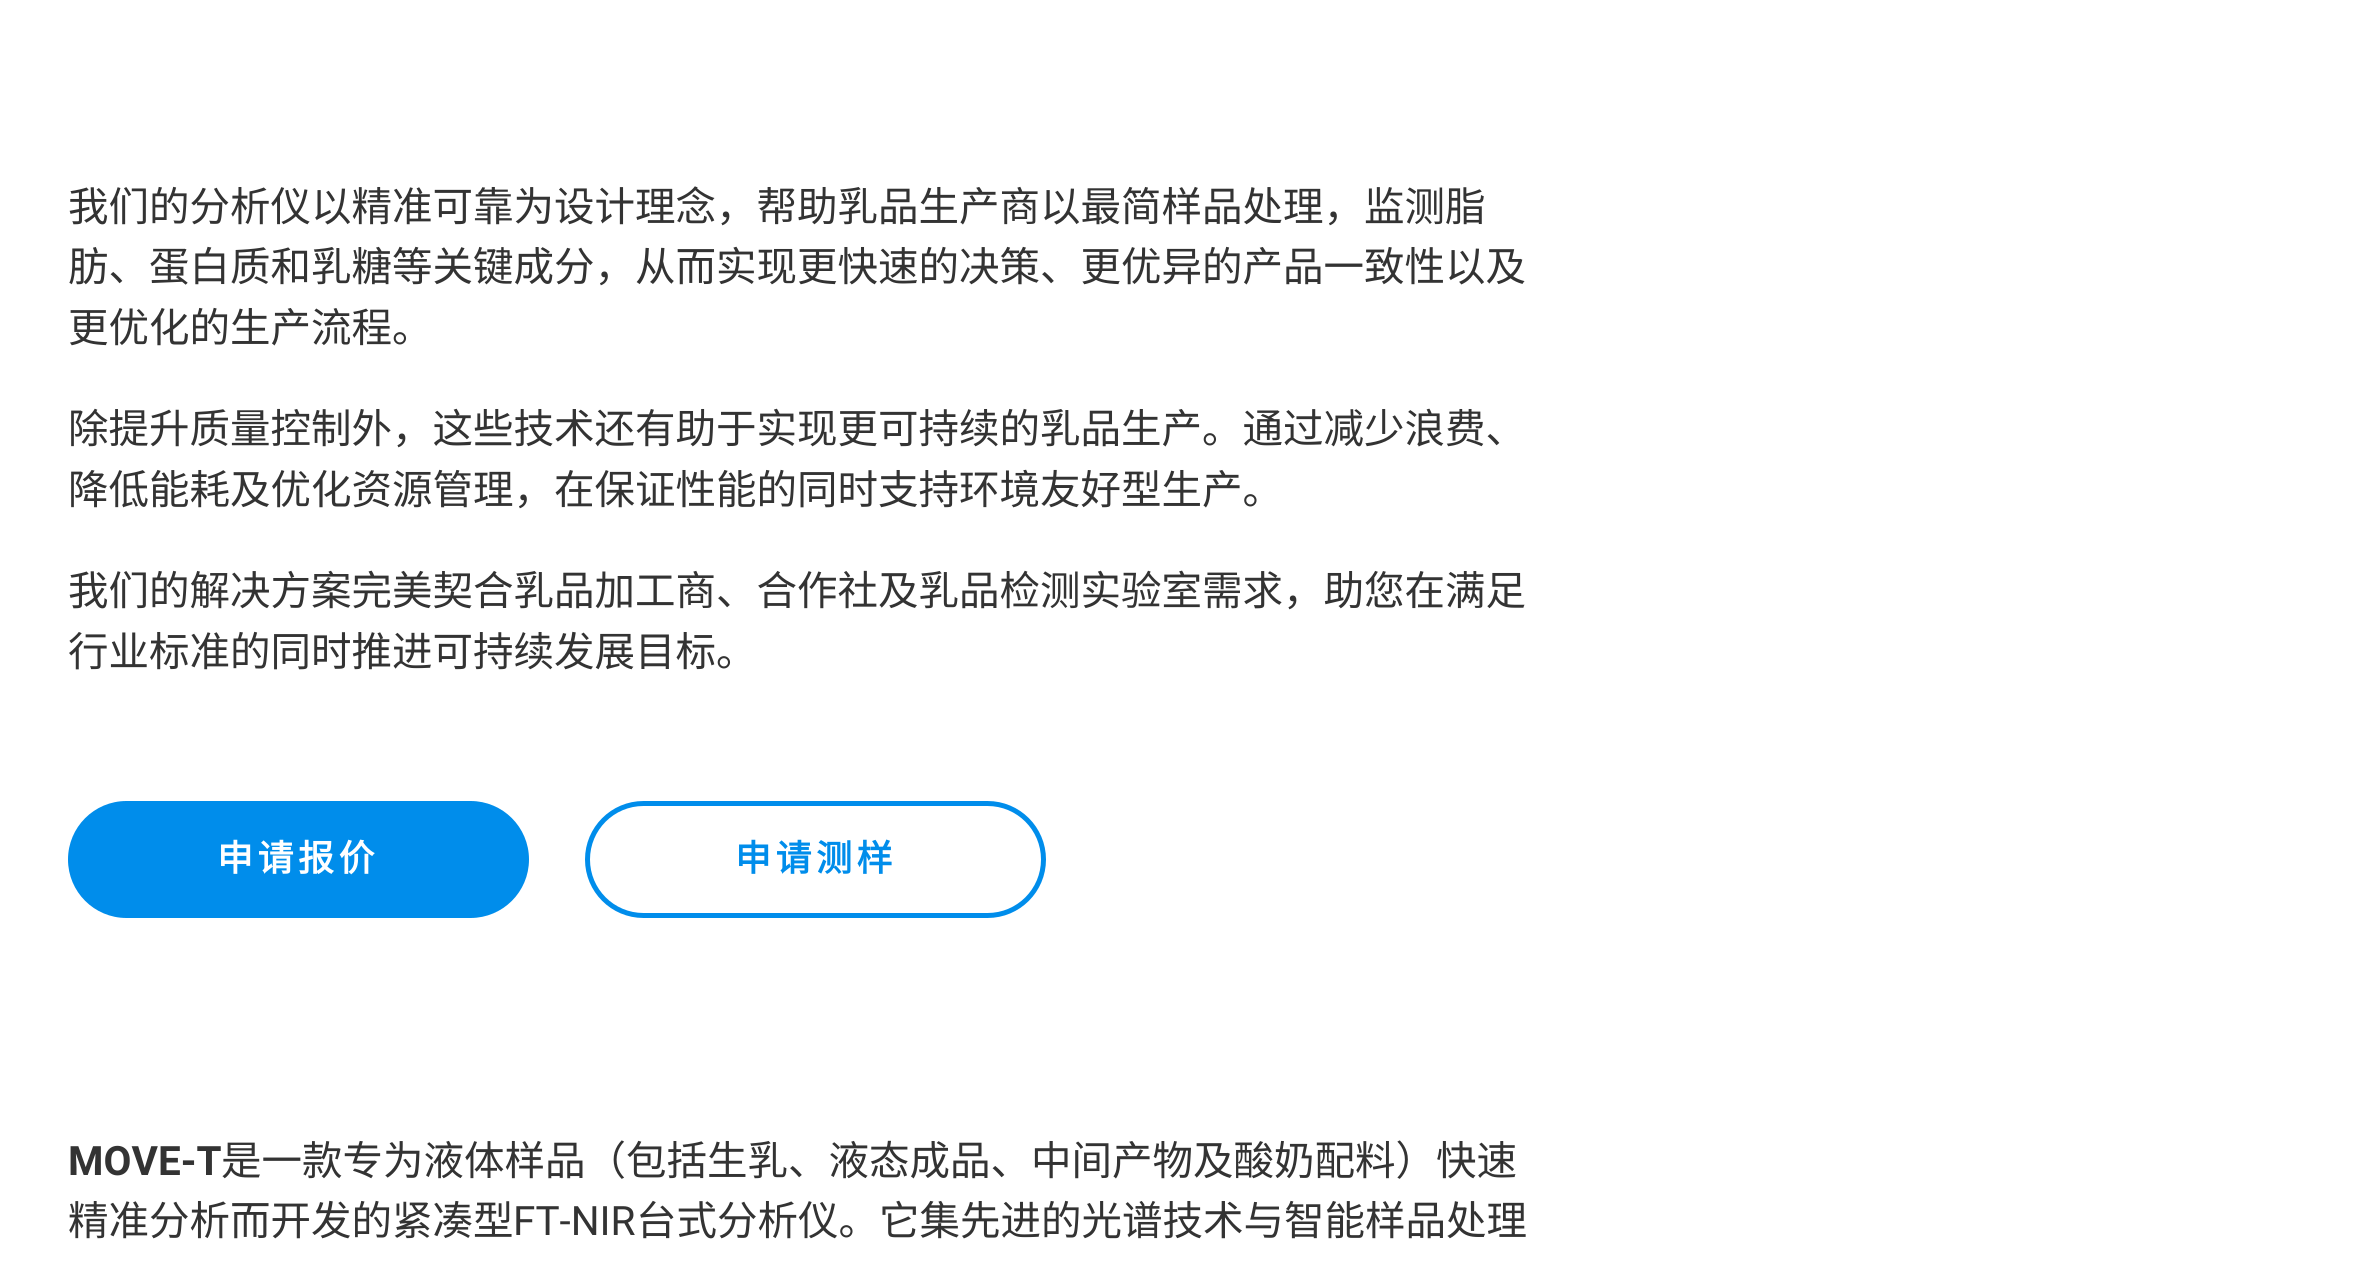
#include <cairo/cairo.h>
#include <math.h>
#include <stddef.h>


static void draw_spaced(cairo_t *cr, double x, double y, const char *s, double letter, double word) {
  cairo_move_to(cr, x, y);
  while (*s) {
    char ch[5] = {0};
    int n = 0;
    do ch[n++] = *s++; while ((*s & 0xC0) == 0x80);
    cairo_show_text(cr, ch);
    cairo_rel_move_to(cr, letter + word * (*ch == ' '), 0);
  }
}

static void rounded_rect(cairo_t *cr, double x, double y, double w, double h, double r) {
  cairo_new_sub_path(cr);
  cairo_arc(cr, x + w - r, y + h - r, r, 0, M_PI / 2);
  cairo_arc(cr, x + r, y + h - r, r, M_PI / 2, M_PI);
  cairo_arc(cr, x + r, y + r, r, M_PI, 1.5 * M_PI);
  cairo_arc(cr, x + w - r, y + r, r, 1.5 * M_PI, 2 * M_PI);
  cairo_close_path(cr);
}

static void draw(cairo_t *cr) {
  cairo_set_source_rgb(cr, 1, 1, 1);
  cairo_paint(cr);
  cairo_set_source_rgb(cr, 0, 141 / 255.0, 235 / 255.0);
  rounded_rect(cr, 68, 801, 461, 117, 58.5);
  cairo_fill(cr);
  rounded_rect(cr, 587.5, 803.5, 456, 112, 56);
  cairo_set_line_width(cr, 5);
  cairo_stroke(cr);
  cairo_select_font_face(cr, "Noto Sans CJK SC", CAIRO_FONT_SLANT_NORMAL, CAIRO_FONT_WEIGHT_NORMAL);
  cairo_set_font_size(cr, 40.5);
  cairo_set_source_rgb(cr, 51 / 255.0, 51 / 255.0, 51 / 255.0);
  cairo_move_to(cr, 68, 221);
  cairo_show_text(cr, "我们的分析仪以精准可靠为设计理念，帮助乳品生产商以最简样品处理，监测脂");
  cairo_move_to(cr, 68, 281);
  cairo_show_text(cr, "肪、蛋白质和乳糖等关键成分，从而实现更快速的决策、更优异的产品一致性以及");
  cairo_move_to(cr, 68, 342);
  cairo_show_text(cr, "更优化的生产流程。");
  cairo_move_to(cr, 68, 443);
  cairo_show_text(cr, "除提升质量控制外，这些技术还有助于实现更可持续的乳品生产。通过减少浪费、");
  cairo_move_to(cr, 68, 504);
  cairo_show_text(cr, "降低能耗及优化资源管理，在保证性能的同时支持环境友好型生产。");
  cairo_move_to(cr, 68, 605);
  cairo_show_text(cr, "我们的解决方案完美契合乳品加工商、合作社及乳品检测实验室需求，助您在满足");
  cairo_move_to(cr, 68, 666);
  cairo_show_text(cr, "行业标准的同时推进可持续发展目标。");
  cairo_select_font_face(cr, "Noto Sans CJK SC", CAIRO_FONT_SLANT_NORMAL, CAIRO_FONT_WEIGHT_BOLD);
  cairo_set_font_size(cr, 36);
  cairo_set_source_rgb(cr, 1, 1, 1);
  draw_spaced(cr, 217, 871, "申请报价", 4.5, 0);
  cairo_set_source_rgb(cr, 0, 141 / 255.0, 235 / 255.0);
  draw_spaced(cr, 735, 871, "申请测样", 4.5, 0);
  cairo_select_font_face(cr, "Roboto", CAIRO_FONT_SLANT_NORMAL, CAIRO_FONT_WEIGHT_BOLD);
  cairo_set_font_size(cr, 40.5);
  cairo_set_source_rgb(cr, 51 / 255.0, 51 / 255.0, 51 / 255.0);
  cairo_move_to(cr, 68, 1175);
  cairo_show_text(cr, "MOVE-T");
  cairo_select_font_face(cr, "Noto Sans CJK SC", CAIRO_FONT_SLANT_NORMAL, CAIRO_FONT_WEIGHT_NORMAL);
  cairo_move_to(cr, 221, 1175);
  cairo_show_text(cr, "是一款专为液体样品（包括生乳、液态成品、中间产物及酸奶配料）快速");
  cairo_move_to(cr, 68, 1235);
  cairo_show_text(cr, "精准分析而开发的紧凑型");
  cairo_select_font_face(cr, "Roboto", CAIRO_FONT_SLANT_NORMAL, CAIRO_FONT_WEIGHT_NORMAL);
  cairo_move_to(cr, 513, 1235);
  cairo_show_text(cr, "FT-NIR");
  cairo_select_font_face(cr, "Noto Sans CJK SC", CAIRO_FONT_SLANT_NORMAL, CAIRO_FONT_WEIGHT_NORMAL);
  cairo_move_to(cr, 636, 1235);
  cairo_show_text(cr, "台式分析仪。它集先进的光谱技术与智能样品处理");
}

int main(void) {
  cairo_surface_t *surface = cairo_image_surface_create(CAIRO_FORMAT_RGB24, 2359, 1266);
  cairo_t *cr = cairo_create(surface);
  cairo_font_options_t *options = cairo_font_options_create();
  cairo_font_options_set_hint_metrics(options, CAIRO_HINT_METRICS_OFF);
  cairo_font_options_set_hint_style(options, CAIRO_HINT_STYLE_NONE);
  cairo_set_font_options(cr, options);
  cairo_set_miter_limit(cr, 4);
  draw(cr);
  cairo_surface_write_to_png(surface, "out.png");
  cairo_font_options_destroy(options);
  cairo_destroy(cr);
  cairo_surface_destroy(surface);
  return 0;
}
